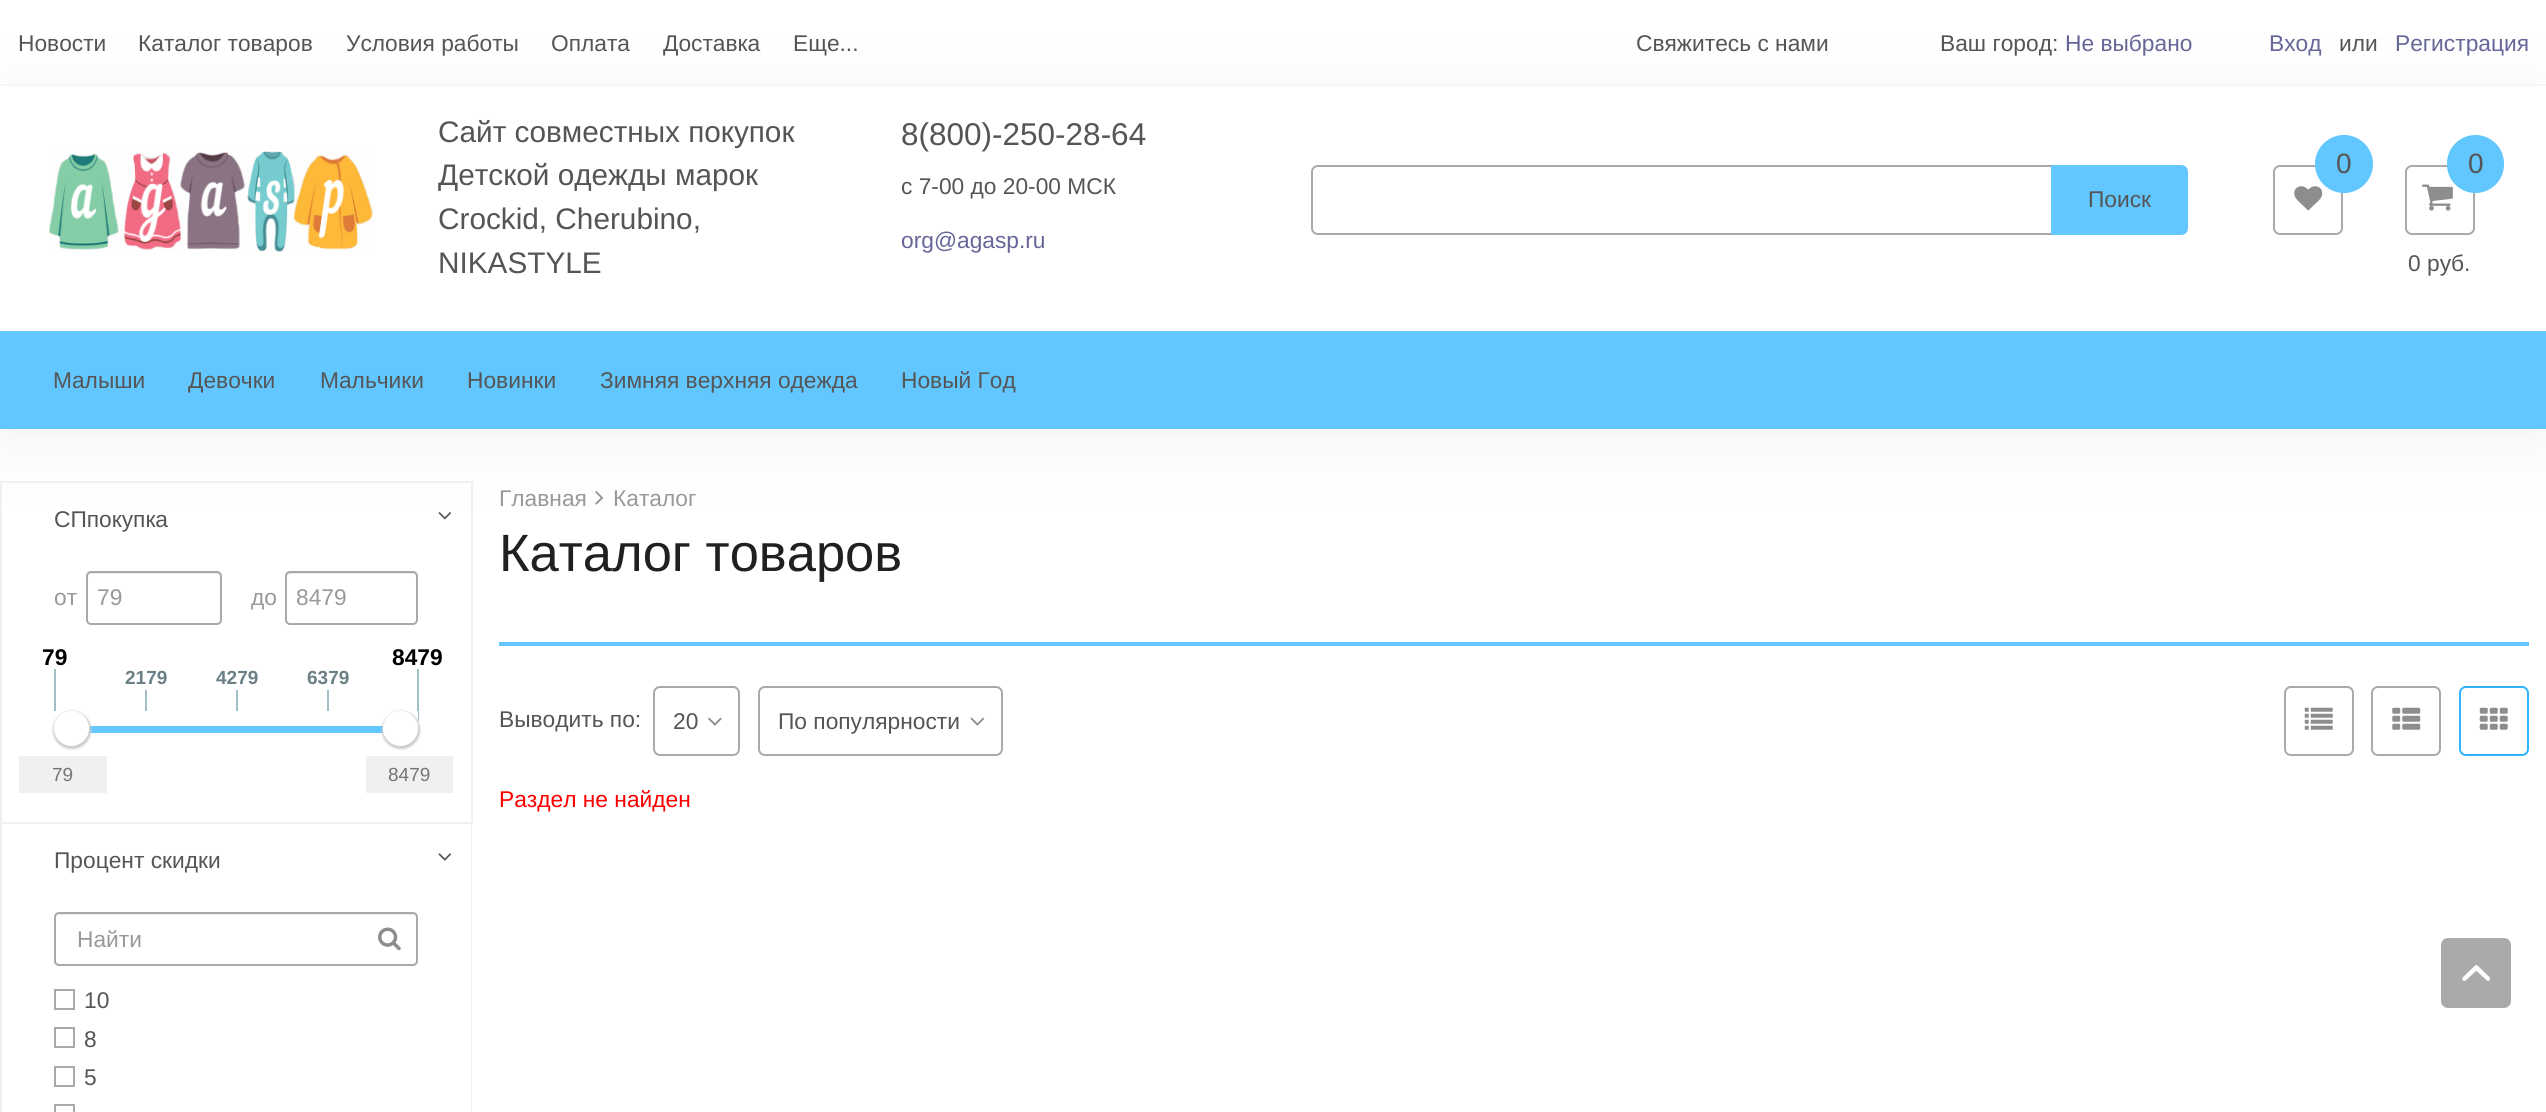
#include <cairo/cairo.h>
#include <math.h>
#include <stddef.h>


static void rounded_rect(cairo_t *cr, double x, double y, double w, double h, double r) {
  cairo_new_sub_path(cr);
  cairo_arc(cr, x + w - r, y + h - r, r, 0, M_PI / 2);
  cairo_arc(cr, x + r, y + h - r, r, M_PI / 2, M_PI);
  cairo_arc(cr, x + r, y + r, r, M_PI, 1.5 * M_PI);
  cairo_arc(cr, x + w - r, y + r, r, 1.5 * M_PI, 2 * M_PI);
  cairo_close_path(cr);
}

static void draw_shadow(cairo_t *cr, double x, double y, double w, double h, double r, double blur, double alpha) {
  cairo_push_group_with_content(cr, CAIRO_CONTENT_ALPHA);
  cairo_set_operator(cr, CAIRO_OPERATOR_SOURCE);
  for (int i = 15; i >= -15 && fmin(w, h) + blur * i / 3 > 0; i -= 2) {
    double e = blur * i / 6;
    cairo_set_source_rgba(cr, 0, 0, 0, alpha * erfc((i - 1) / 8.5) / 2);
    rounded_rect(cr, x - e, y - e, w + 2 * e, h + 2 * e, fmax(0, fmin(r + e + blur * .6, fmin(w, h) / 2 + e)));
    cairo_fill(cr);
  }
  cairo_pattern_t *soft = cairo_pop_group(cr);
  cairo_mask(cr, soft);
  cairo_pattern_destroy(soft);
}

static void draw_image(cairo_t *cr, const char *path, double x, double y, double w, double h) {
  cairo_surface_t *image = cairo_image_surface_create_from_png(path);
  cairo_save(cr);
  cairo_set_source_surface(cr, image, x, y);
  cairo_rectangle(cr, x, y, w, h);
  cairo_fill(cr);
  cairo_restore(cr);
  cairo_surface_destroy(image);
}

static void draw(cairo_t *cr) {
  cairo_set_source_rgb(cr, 1, 1, 1);
  cairo_paint(cr);
  cairo_rectangle(cr, 1, 482, 471, 341);
  cairo_set_source_rgb(cr, 240 / 255.0, 240 / 255.0, 240 / 255.0);
  cairo_stroke(cr);
  draw_image(cr, "images/4.png", 438, 512, 14, 8);
  draw_image(cr, "images/7.png", 595, 491, 9, 14);
  cairo_set_source_rgb(cr, 243 / 255.0, 243 / 255.0, 243 / 255.0);
  draw_shadow(cr, 0, 100, 2546, 343, 0, 35, 1);
  cairo_set_source_rgb(cr, 245 / 255.0, 245 / 255.0, 245 / 255.0);
  cairo_rectangle(cr, 0, 84, 2546, 2);
  cairo_fill(cr);
  cairo_set_source_rgb(cr, 1, 1, 1);
  cairo_rectangle(cr, 0, 86, 2546, 245);
  cairo_fill(cr);
  draw_image(cr, "images/1.png", 49, 151, 324, 101);
  cairo_new_path(cr);
  cairo_move_to(cr, 1318, 166);
  cairo_line_to(cr, 2052, 166);
  cairo_line_to(cr, 2052, 234);
  cairo_line_to(cr, 1318, 234);
  cairo_curve_to(cr, 1314.5, 234, 1312, 231.5, 1312, 228);
  cairo_line_to(cr, 1312, 172);
  cairo_curve_to(cr, 1312, 168.5, 1314.5, 166, 1318, 166);
  cairo_close_path(cr);
  cairo_set_source_rgb(cr, 169 / 255.0, 169 / 255.0, 169 / 255.0);
  cairo_stroke(cr);
  cairo_set_source_rgb(cr, 98 / 255.0, 198 / 255.0, 1);
  cairo_new_path(cr);
  cairo_move_to(cr, 2052, 166);
  cairo_line_to(cr, 2181, 166);
  cairo_curve_to(cr, 2184.5, 166, 2187, 168.5, 2187, 172);
  cairo_line_to(cr, 2187, 228);
  cairo_curve_to(cr, 2187, 231.5, 2184.5, 234, 2181, 234);
  cairo_line_to(cr, 2052, 234);
  cairo_close_path(cr);
  cairo_fill_preserve(cr);
  cairo_stroke(cr);
  rounded_rect(cr, 2274, 166, 68, 68, 6);
  cairo_set_source_rgb(cr, 169 / 255.0, 169 / 255.0, 169 / 255.0);
  cairo_stroke(cr);
  draw_image(cr, "images/2.png", 2294, 186, 29, 25);
  cairo_set_source_rgb(cr, 98 / 255.0, 198 / 255.0, 1);
  cairo_arc(cr, 2344, 164, 29, 0, 2 * M_PI);
  cairo_fill(cr);
  rounded_rect(cr, 2406, 166, 68, 68, 6);
  cairo_set_source_rgb(cr, 169 / 255.0, 169 / 255.0, 169 / 255.0);
  cairo_stroke(cr);
  draw_image(cr, "images/3.png", 2422, 184, 31, 27);
  cairo_set_source_rgb(cr, 98 / 255.0, 198 / 255.0, 1);
  rounded_rect(cr, 2447, 135, 57, 58, 28.5);
  cairo_fill(cr);
  cairo_rectangle(cr, 0, 331, 2546, 98);
  cairo_fill(cr);
  cairo_set_source_rgb(cr, 236 / 255.0, 236 / 255.0, 236 / 255.0);
  cairo_new_path(cr);
  cairo_move_to(cr, 91, 574);
  cairo_line_to(cr, 217, 574);
  cairo_curve_to(cr, 222, 574, 220, 584, 220, 585);
  cairo_line_to(cr, 220, 622);
  cairo_curve_to(cr, 221, 621, 221, 620, 221, 619);
  cairo_line_to(cr, 221, 576);
  cairo_curve_to(cr, 221, 574, 219, 572, 217, 572);
  cairo_line_to(cr, 92, 572);
  cairo_curve_to(cr, 90, 572, 88, 574, 88, 576);
  cairo_line_to(cr, 88, 578);
  cairo_curve_to(cr, 88, 576, 89, 574, 91, 574);
  cairo_close_path(cr);
  cairo_fill(cr);
  rounded_rect(cr, 87, 572, 134, 52, 4);
  cairo_set_source_rgb(cr, 169 / 255.0, 169 / 255.0, 169 / 255.0);
  cairo_stroke(cr);
  cairo_set_source_rgb(cr, 236 / 255.0, 236 / 255.0, 236 / 255.0);
  cairo_new_path(cr);
  cairo_move_to(cr, 290, 574);
  cairo_line_to(cr, 413, 574);
  cairo_curve_to(cr, 418, 574, 416, 584, 416, 585);
  cairo_line_to(cr, 416, 622);
  cairo_curve_to(cr, 417, 621, 417, 620, 417, 619);
  cairo_line_to(cr, 417, 576);
  cairo_curve_to(cr, 417, 574, 415, 572, 413, 572);
  cairo_line_to(cr, 291, 572);
  cairo_curve_to(cr, 289, 572, 287, 574, 287, 576);
  cairo_line_to(cr, 287, 578);
  cairo_curve_to(cr, 287, 576, 289, 574, 290, 574);
  cairo_close_path(cr);
  cairo_fill(cr);
  rounded_rect(cr, 286, 572, 131, 52, 4);
  cairo_set_source_rgb(cr, 169 / 255.0, 169 / 255.0, 169 / 255.0);
  cairo_stroke(cr);
  cairo_set_source_rgb(cr, 162 / 255.0, 191 / 255.0, 199 / 255.0);
  cairo_rectangle(cr, 54, 669, 2, 42);
  cairo_fill(cr);
  cairo_rectangle(cr, 417, 669, 2, 52);
  cairo_fill(cr);
  cairo_rectangle(cr, 145, 690, 2, 21);
  cairo_fill(cr);
  cairo_rectangle(cr, 236, 690, 2, 21);
  cairo_fill(cr);
  cairo_rectangle(cr, 327, 690, 2, 21);
  cairo_fill(cr);
  cairo_set_source_rgb(cr, 98 / 255.0, 198 / 255.0, 1);
  cairo_rectangle(cr, 89, 726, 294, 7);
  cairo_fill(cr);
  cairo_save(cr);
  cairo_set_fill_rule(cr, CAIRO_FILL_RULE_EVEN_ODD);
  cairo_new_path(cr);
  cairo_move_to(cr, 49, 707);
  cairo_line_to(cr, 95, 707);
  cairo_line_to(cr, 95, 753);
  cairo_line_to(cr, 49, 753);
  cairo_close_path(cr);
  cairo_move_to(cr, 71.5, 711);
  cairo_curve_to(cr, 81, 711, 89, 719, 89, 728.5);
  cairo_curve_to(cr, 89, 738, 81, 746, 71.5, 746);
  cairo_curve_to(cr, 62, 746, 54, 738, 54, 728.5);
  cairo_curve_to(cr, 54, 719, 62, 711, 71.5, 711);
  cairo_close_path(cr);
  cairo_clip(cr);
  cairo_set_source_rgb(cr, 204 / 255.0, 204 / 255.0, 204 / 255.0);
  draw_shadow(cr, 53, 711, 38, 38, 19, 1, 1);
  cairo_restore(cr);
  cairo_set_source_rgb(cr, 1, 1, 1);
  cairo_rectangle(cr, 417, 711, 1, 10);
  cairo_fill(cr);
  cairo_save(cr);
  cairo_set_fill_rule(cr, CAIRO_FILL_RULE_EVEN_ODD);
  cairo_new_path(cr);
  cairo_move_to(cr, 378, 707);
  cairo_line_to(cr, 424, 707);
  cairo_line_to(cr, 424, 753);
  cairo_line_to(cr, 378, 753);
  cairo_close_path(cr);
  cairo_move_to(cr, 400.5, 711);
  cairo_curve_to(cr, 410, 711, 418, 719, 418, 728.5);
  cairo_curve_to(cr, 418, 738, 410, 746, 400.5, 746);
  cairo_curve_to(cr, 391, 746, 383, 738, 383, 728.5);
  cairo_curve_to(cr, 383, 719, 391, 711, 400.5, 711);
  cairo_close_path(cr);
  cairo_clip(cr);
  cairo_set_source_rgb(cr, 204 / 255.0, 204 / 255.0, 204 / 255.0);
  draw_shadow(cr, 382, 711, 38, 38, 19, 1, 1);
  cairo_restore(cr);
  cairo_set_source_rgb(cr, 240 / 255.0, 240 / 255.0, 240 / 255.0);
  cairo_rectangle(cr, 19, 756, 88, 37);
  cairo_fill(cr);
  cairo_rectangle(cr, 366, 756, 87, 37);
  cairo_fill(cr);
  cairo_new_path(cr);
  cairo_move_to(cr, 472, 824);
  cairo_line_to(cr, 472, 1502);
  cairo_line_to(cr, 471, 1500);
  cairo_line_to(cr, 471, 824);
  cairo_close_path(cr);
  cairo_fill(cr);
  cairo_new_path(cr);
  cairo_move_to(cr, 0, 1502);
  cairo_line_to(cr, 0, 824);
  cairo_line_to(cr, 2, 824);
  cairo_line_to(cr, 2, 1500);
  cairo_close_path(cr);
  cairo_fill(cr);
  draw_image(cr, "images/5.png", 438, 853, 14, 8);
  cairo_set_source_rgb(cr, 236 / 255.0, 236 / 255.0, 236 / 255.0);
  cairo_new_path(cr);
  cairo_move_to(cr, 60, 915);
  cairo_line_to(cr, 413, 915);
  cairo_curve_to(cr, 415, 915, 416, 917, 416, 919);
  cairo_line_to(cr, 416, 963);
  cairo_curve_to(cr, 417, 962, 417, 961, 417, 960);
  cairo_line_to(cr, 417, 918);
  cairo_curve_to(cr, 417, 916, 415, 914, 413, 914);
  cairo_line_to(cr, 60, 914);
  cairo_curve_to(cr, 58, 914, 56, 916, 56, 918);
  cairo_line_to(cr, 56, 919);
  cairo_curve_to(cr, 56, 917, 58, 915, 60, 915);
  cairo_close_path(cr);
  cairo_fill(cr);
  rounded_rect(cr, 55, 913, 362, 52, 4);
  cairo_set_source_rgb(cr, 169 / 255.0, 169 / 255.0, 169 / 255.0);
  cairo_stroke(cr);
  draw_image(cr, "images/6.png", 378, 927, 23, 24);
  cairo_rectangle(cr, 55, 990, 19, 19);
  cairo_stroke(cr);
  cairo_rectangle(cr, 55, 1028, 19, 19);
  cairo_stroke(cr);
  cairo_rectangle(cr, 55, 1067, 19, 19);
  cairo_stroke(cr);
  cairo_rectangle(cr, 55, 1105, 19, 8);
  cairo_stroke(cr);
  cairo_set_source_rgb(cr, 98 / 255.0, 198 / 255.0, 1);
  cairo_rectangle(cr, 499, 642, 2030, 4);
  cairo_fill(cr);
  rounded_rect(cr, 654, 687, 85, 68, 6);
  cairo_set_source_rgb(cr, 169 / 255.0, 169 / 255.0, 169 / 255.0);
  cairo_stroke(cr);
  draw_image(cr, "images/8.png", 708, 717, 14, 9);
  rounded_rect(cr, 759, 687, 243, 68, 6);
  cairo_stroke(cr);
  draw_image(cr, "images/9.png", 970, 717, 15, 9);
  rounded_rect(cr, 2285, 687, 68, 68, 6);
  cairo_stroke(cr);
  draw_image(cr, "images/10.png", 2304, 707, 29, 23);
  rounded_rect(cr, 2372, 687, 68, 68, 6);
  cairo_stroke(cr);
  draw_image(cr, "images/11.png", 2392, 707, 29, 23);
  rounded_rect(cr, 2460, 687, 68, 68, 6);
  cairo_set_source_rgb(cr, 47 / 255.0, 179 / 255.0, 1);
  cairo_stroke(cr);
  draw_image(cr, "images/12.png", 2479, 707, 29, 23);
  cairo_set_source_rgb(cr, 170 / 255.0, 170 / 255.0, 170 / 255.0);
  rounded_rect(cr, 2441, 938, 70, 70, 7);
  cairo_fill(cr);
  draw_image(cr, "images/13.png", 2462, 965, 28, 16);
  cairo_select_font_face(cr, "Liberation Sans", CAIRO_FONT_SLANT_NORMAL, CAIRO_FONT_WEIGHT_NORMAL);
  cairo_set_font_size(cr, 22.75);
  cairo_set_source_rgb(cr, 85 / 255.0, 85 / 255.0, 85 / 255.0);
  cairo_move_to(cr, 18, 51);
  cairo_show_text(cr, "Новости");
  cairo_move_to(cr, 138, 51);
  cairo_show_text(cr, "Каталог товаров");
  cairo_move_to(cr, 346, 51);
  cairo_show_text(cr, "Условия работы");
  cairo_move_to(cr, 551, 51);
  cairo_show_text(cr, "Оплата");
  cairo_move_to(cr, 663, 51);
  cairo_show_text(cr, "Доставка");
  cairo_move_to(cr, 793, 51);
  cairo_show_text(cr, "Еще...");
  cairo_move_to(cr, 1636, 51);
  cairo_show_text(cr, "Cвяжитесь с нами");
  cairo_move_to(cr, 1940, 51);
  cairo_show_text(cr, "Ваш город:");
  cairo_set_source_rgb(cr, 102 / 255.0, 102 / 255.0, 153 / 255.0);
  cairo_move_to(cr, 2065, 51);
  cairo_show_text(cr, "Не выбрано");
  cairo_move_to(cr, 2269, 51);
  cairo_show_text(cr, "Вход");
  cairo_set_source_rgb(cr, 85 / 255.0, 85 / 255.0, 85 / 255.0);
  cairo_move_to(cr, 2339, 51);
  cairo_show_text(cr, "или");
  cairo_set_source_rgb(cr, 102 / 255.0, 102 / 255.0, 153 / 255.0);
  cairo_move_to(cr, 2395, 51);
  cairo_show_text(cr, "Регистрация");
  cairo_set_font_size(cr, 29.75);
  cairo_set_source_rgb(cr, 85 / 255.0, 85 / 255.0, 85 / 255.0);
  cairo_move_to(cr, 438, 142);
  cairo_show_text(cr, "Сайт совместных покупок");
  cairo_move_to(cr, 438, 185);
  cairo_show_text(cr, "Детской одежды марок");
  cairo_move_to(cr, 438, 229);
  cairo_show_text(cr, "Crockid, Cherubino,");
  cairo_move_to(cr, 438, 273);
  cairo_show_text(cr, "NIKASTYLE");
  cairo_set_font_size(cr, 31.5);
  cairo_move_to(cr, 901, 145);
  cairo_show_text(cr, "8(800)-250-28-64");
  cairo_set_font_size(cr, 22.75);
  cairo_move_to(cr, 901, 194);
  cairo_show_text(cr, "c 7-00 до 20-00 МСК");
  cairo_set_source_rgb(cr, 102 / 255.0, 102 / 255.0, 153 / 255.0);
  cairo_move_to(cr, 901, 248);
  cairo_show_text(cr, "org@agasp.ru");
  cairo_set_source_rgb(cr, 85 / 255.0, 85 / 255.0, 85 / 255.0);
  cairo_move_to(cr, 2088, 207);
  cairo_show_text(cr, "Поиск");
  cairo_set_font_size(cr, 28);
  cairo_move_to(cr, 2336, 173);
  cairo_show_text(cr, "0");
  cairo_move_to(cr, 2468, 173);
  cairo_show_text(cr, "0");
  cairo_set_font_size(cr, 22.75);
  cairo_move_to(cr, 2408, 271);
  cairo_show_text(cr, "0 руб.");
  cairo_move_to(cr, 53, 388);
  cairo_show_text(cr, "Малыши");
  cairo_move_to(cr, 188, 388);
  cairo_show_text(cr, "Девочки");
  cairo_move_to(cr, 320, 388);
  cairo_show_text(cr, "Мальчики");
  cairo_move_to(cr, 467, 388);
  cairo_show_text(cr, "Новинки");
  cairo_move_to(cr, 600, 388);
  cairo_show_text(cr, "Зимняя верхняя одежда");
  cairo_move_to(cr, 901, 388);
  cairo_show_text(cr, "Новый Год");
  cairo_move_to(cr, 54, 527);
  cairo_show_text(cr, "СПпокупка");
  cairo_set_source_rgb(cr, 153 / 255.0, 153 / 255.0, 153 / 255.0);
  cairo_move_to(cr, 54, 605);
  cairo_show_text(cr, "от");
  cairo_move_to(cr, 97, 605);
  cairo_show_text(cr, "79");
  cairo_move_to(cr, 251, 605);
  cairo_show_text(cr, "до");
  cairo_move_to(cr, 296, 605);
  cairo_show_text(cr, "8479");
  cairo_select_font_face(cr, "Liberation Sans", CAIRO_FONT_SLANT_NORMAL, CAIRO_FONT_WEIGHT_BOLD);
  cairo_set_source_rgb(cr, 0, 0, 0);
  cairo_move_to(cr, 42, 665);
  cairo_show_text(cr, "79");
  cairo_move_to(cr, 392, 665);
  cairo_show_text(cr, "8479");
  cairo_set_font_size(cr, 19);
  cairo_set_source_rgb(cr, 107 / 255.0, 128 / 255.0, 134 / 255.0);
  cairo_move_to(cr, 125, 684);
  cairo_show_text(cr, "2179");
  cairo_move_to(cr, 216, 684);
  cairo_show_text(cr, "4279");
  cairo_move_to(cr, 307, 684);
  cairo_show_text(cr, "6379");
  cairo_select_font_face(cr, "Liberation Sans", CAIRO_FONT_SLANT_NORMAL, CAIRO_FONT_WEIGHT_NORMAL);
  cairo_set_source_rgb(cr, 117 / 255.0, 117 / 255.0, 117 / 255.0);
  cairo_move_to(cr, 52, 781);
  cairo_show_text(cr, "79");
  cairo_move_to(cr, 388, 781);
  cairo_show_text(cr, "8479");
  cairo_set_font_size(cr, 22.75);
  cairo_set_source_rgb(cr, 85 / 255.0, 85 / 255.0, 85 / 255.0);
  cairo_move_to(cr, 54, 868);
  cairo_show_text(cr, "Процент скидки");
  cairo_set_source_rgb(cr, 153 / 255.0, 153 / 255.0, 153 / 255.0);
  cairo_move_to(cr, 77, 947);
  cairo_show_text(cr, "Найти");
  cairo_set_source_rgb(cr, 85 / 255.0, 85 / 255.0, 85 / 255.0);
  cairo_move_to(cr, 84, 1008);
  cairo_show_text(cr, "10");
  cairo_move_to(cr, 84, 1047);
  cairo_show_text(cr, "8");
  cairo_move_to(cr, 84, 1085);
  cairo_show_text(cr, "5");
  cairo_set_source_rgb(cr, 153 / 255.0, 153 / 255.0, 153 / 255.0);
  cairo_move_to(cr, 499, 506);
  cairo_show_text(cr, "Главная");
  cairo_move_to(cr, 613, 506);
  cairo_show_text(cr, "Каталог");
  cairo_set_font_size(cr, 52.5);
  cairo_set_source_rgb(cr, 32 / 255.0, 32 / 255.0, 32 / 255.0);
  cairo_move_to(cr, 499, 571);
  cairo_show_text(cr, "Каталог товаров");
  cairo_set_font_size(cr, 22.75);
  cairo_set_source_rgb(cr, 85 / 255.0, 85 / 255.0, 85 / 255.0);
  cairo_move_to(cr, 499, 727);
  cairo_show_text(cr, "Выводить по:");
  cairo_move_to(cr, 673, 729);
  cairo_show_text(cr, "20");
  cairo_move_to(cr, 778, 729);
  cairo_show_text(cr, "По популярности");
  cairo_set_source_rgb(cr, 1, 0, 0);
  cairo_move_to(cr, 499, 807);
  cairo_show_text(cr, "Раздел не найден");
}

int main(void) {
  cairo_surface_t *surface = cairo_image_surface_create(CAIRO_FORMAT_RGB24, 2546, 1112);
  cairo_t *cr = cairo_create(surface);
  cairo_font_options_t *options = cairo_font_options_create();
  cairo_font_options_set_hint_metrics(options, CAIRO_HINT_METRICS_OFF);
  cairo_font_options_set_hint_style(options, CAIRO_HINT_STYLE_NONE);
  cairo_set_font_options(cr, options);
  cairo_set_miter_limit(cr, 4);
  draw(cr);
  cairo_surface_write_to_png(surface, "out.png");
  cairo_font_options_destroy(options);
  cairo_destroy(cr);
  cairo_surface_destroy(surface);
  return 0;
}
